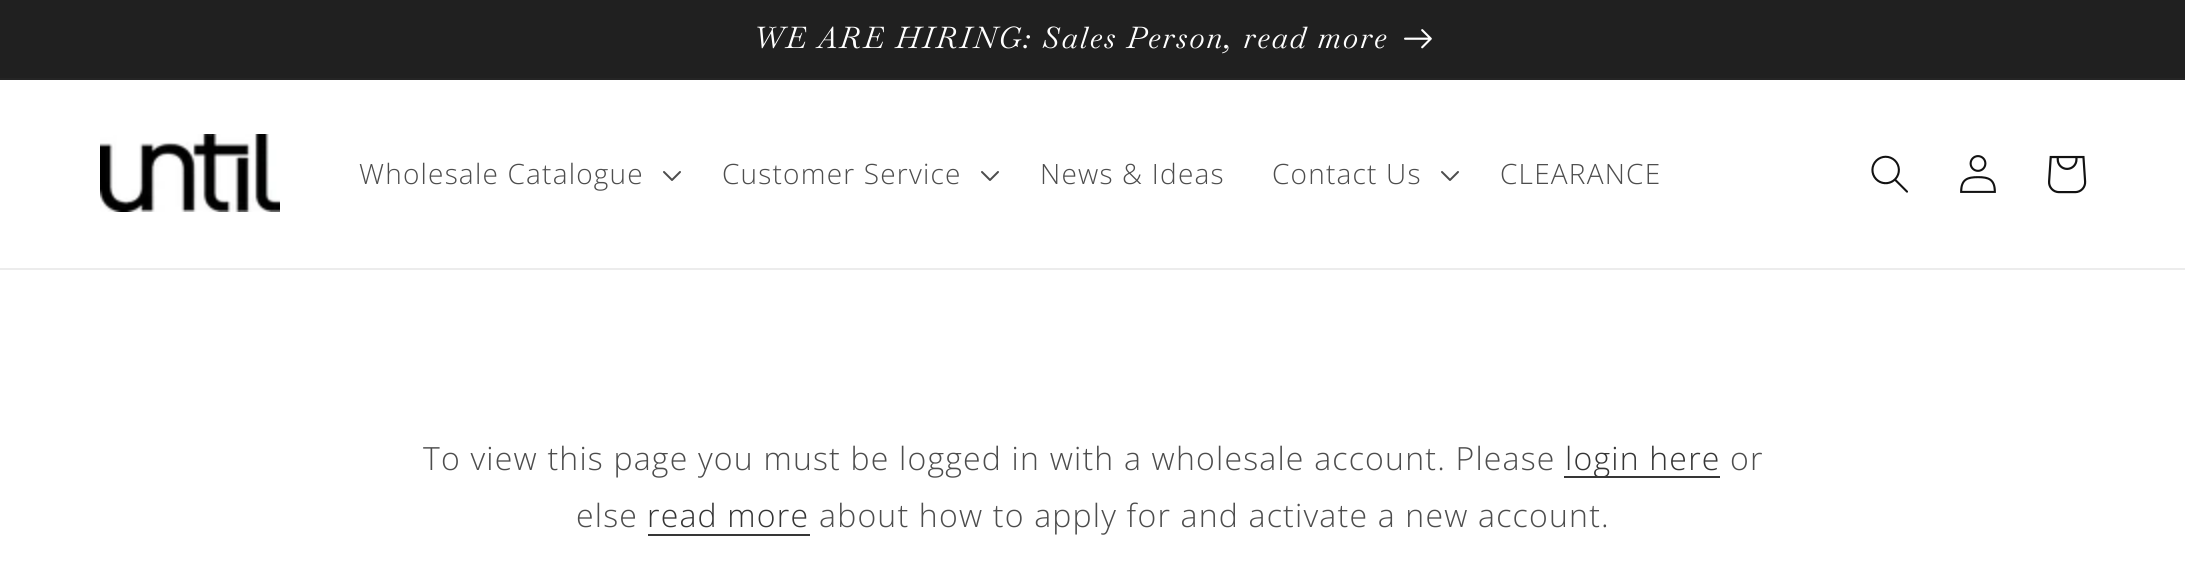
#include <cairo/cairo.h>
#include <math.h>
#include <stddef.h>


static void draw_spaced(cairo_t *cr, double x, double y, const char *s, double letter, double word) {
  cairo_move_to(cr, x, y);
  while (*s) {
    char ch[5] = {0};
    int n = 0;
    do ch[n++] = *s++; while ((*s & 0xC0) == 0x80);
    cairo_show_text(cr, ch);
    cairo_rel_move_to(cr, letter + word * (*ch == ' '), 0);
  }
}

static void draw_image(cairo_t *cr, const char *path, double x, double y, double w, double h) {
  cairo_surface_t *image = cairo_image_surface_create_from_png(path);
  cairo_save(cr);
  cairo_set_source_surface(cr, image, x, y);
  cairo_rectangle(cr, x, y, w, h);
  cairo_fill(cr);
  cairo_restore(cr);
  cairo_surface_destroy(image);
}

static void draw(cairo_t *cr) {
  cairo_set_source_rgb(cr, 1, 1, 1);
  cairo_paint(cr);
  cairo_set_source_rgb(cr, 37 / 255.0, 37 / 255.0, 37 / 255.0);
  cairo_rectangle(cr, 0, 78, 2185, 2);
  cairo_fill(cr);
  cairo_set_source_rgb(cr, 32 / 255.0, 32 / 255.0, 32 / 255.0);
  cairo_rectangle(cr, 0, 0, 2185, 78);
  cairo_fill(cr);
  draw_image(cr, "images/1.png", 1404, 29, 28, 20);
  cairo_set_source_rgb(cr, 236 / 255.0, 236 / 255.0, 236 / 255.0);
  cairo_rectangle(cr, 0, 268, 2185, 2);
  cairo_fill(cr);
  draw_image(cr, "images/2.png", 100, 134, 180, 78);
  draw_image(cr, "images/3.png", 663, 171, 18, 10);
  draw_image(cr, "images/3.png", 981, 171, 18, 10);
  draw_image(cr, "images/3.png", 1441, 171, 18, 10);
  draw_image(cr, "images/4.png", 1871, 155, 37, 38);
  draw_image(cr, "images/5.png", 1960, 155, 36, 38);
  draw_image(cr, "images/6.png", 2048, 155, 39, 39);
  cairo_set_source_rgb(cr, 54 / 255.0, 54 / 255.0, 54 / 255.0);
  cairo_rectangle(cr, 1564, 476, 156, 2);
  cairo_fill(cr);
  cairo_rectangle(cr, 648, 534, 162, 2);
  cairo_fill(cr);
  cairo_select_font_face(cr, "Baskervville", CAIRO_FONT_SLANT_ITALIC, CAIRO_FONT_WEIGHT_NORMAL);
  cairo_set_font_size(cr, 29.9);
  cairo_set_source_rgb(cr, 1, 1, 1);
  draw_spaced(cr, 753, 48, "WE ARE HIRING: Sales Person, read more", 2, 0);
  cairo_select_font_face(cr, "Open Sans Light", CAIRO_FONT_SLANT_NORMAL, CAIRO_FONT_WEIGHT_NORMAL);
  cairo_set_font_size(cr, 28);
  cairo_set_source_rgb(cr, 77 / 255.0, 77 / 255.0, 77 / 255.0);
  draw_spaced(cr, 359, 184, "Wholesale Catalogue", 1.2, 0);
  draw_spaced(cr, 722, 184, "Customer Service", 1.2, 0);
  draw_spaced(cr, 1040, 184, "News & Ideas", 1.2, 0);
  draw_spaced(cr, 1272, 184, "Contact Us", 1.2, 0);
  draw_spaced(cr, 1500, 184, "CLEARANCE", 1.2, 0);
  cairo_set_font_size(cr, 32);
  draw_spaced(cr, 423, 470, "To view this page you must be logged in with a wholesale account. Please", 1.2, 0);
  cairo_set_source_rgb(cr, 53 / 255.0, 53 / 255.0, 53 / 255.0);
  draw_spaced(cr, 1565, 470, "login here", 1.2, 0);
  cairo_set_source_rgb(cr, 77 / 255.0, 77 / 255.0, 77 / 255.0);
  draw_spaced(cr, 1730, 470, "or", 1.2, 0);
  draw_spaced(cr, 576, 527, "else", 1.2, 0);
  cairo_set_source_rgb(cr, 53 / 255.0, 53 / 255.0, 53 / 255.0);
  draw_spaced(cr, 647, 527, "read more", 1.2, 0);
  cairo_set_source_rgb(cr, 77 / 255.0, 77 / 255.0, 77 / 255.0);
  draw_spaced(cr, 819, 527, "about how to apply for and activate a new account.", 1.2, 0);
}

int main(void) {
  cairo_surface_t *surface = cairo_image_surface_create(CAIRO_FORMAT_RGB24, 2185, 585);
  cairo_t *cr = cairo_create(surface);
  cairo_font_options_t *options = cairo_font_options_create();
  cairo_font_options_set_hint_metrics(options, CAIRO_HINT_METRICS_OFF);
  cairo_font_options_set_hint_style(options, CAIRO_HINT_STYLE_NONE);
  cairo_set_font_options(cr, options);
  cairo_set_miter_limit(cr, 4);
  draw(cr);
  cairo_surface_write_to_png(surface, "out.png");
  cairo_font_options_destroy(options);
  cairo_destroy(cr);
  cairo_surface_destroy(surface);
  return 0;
}
